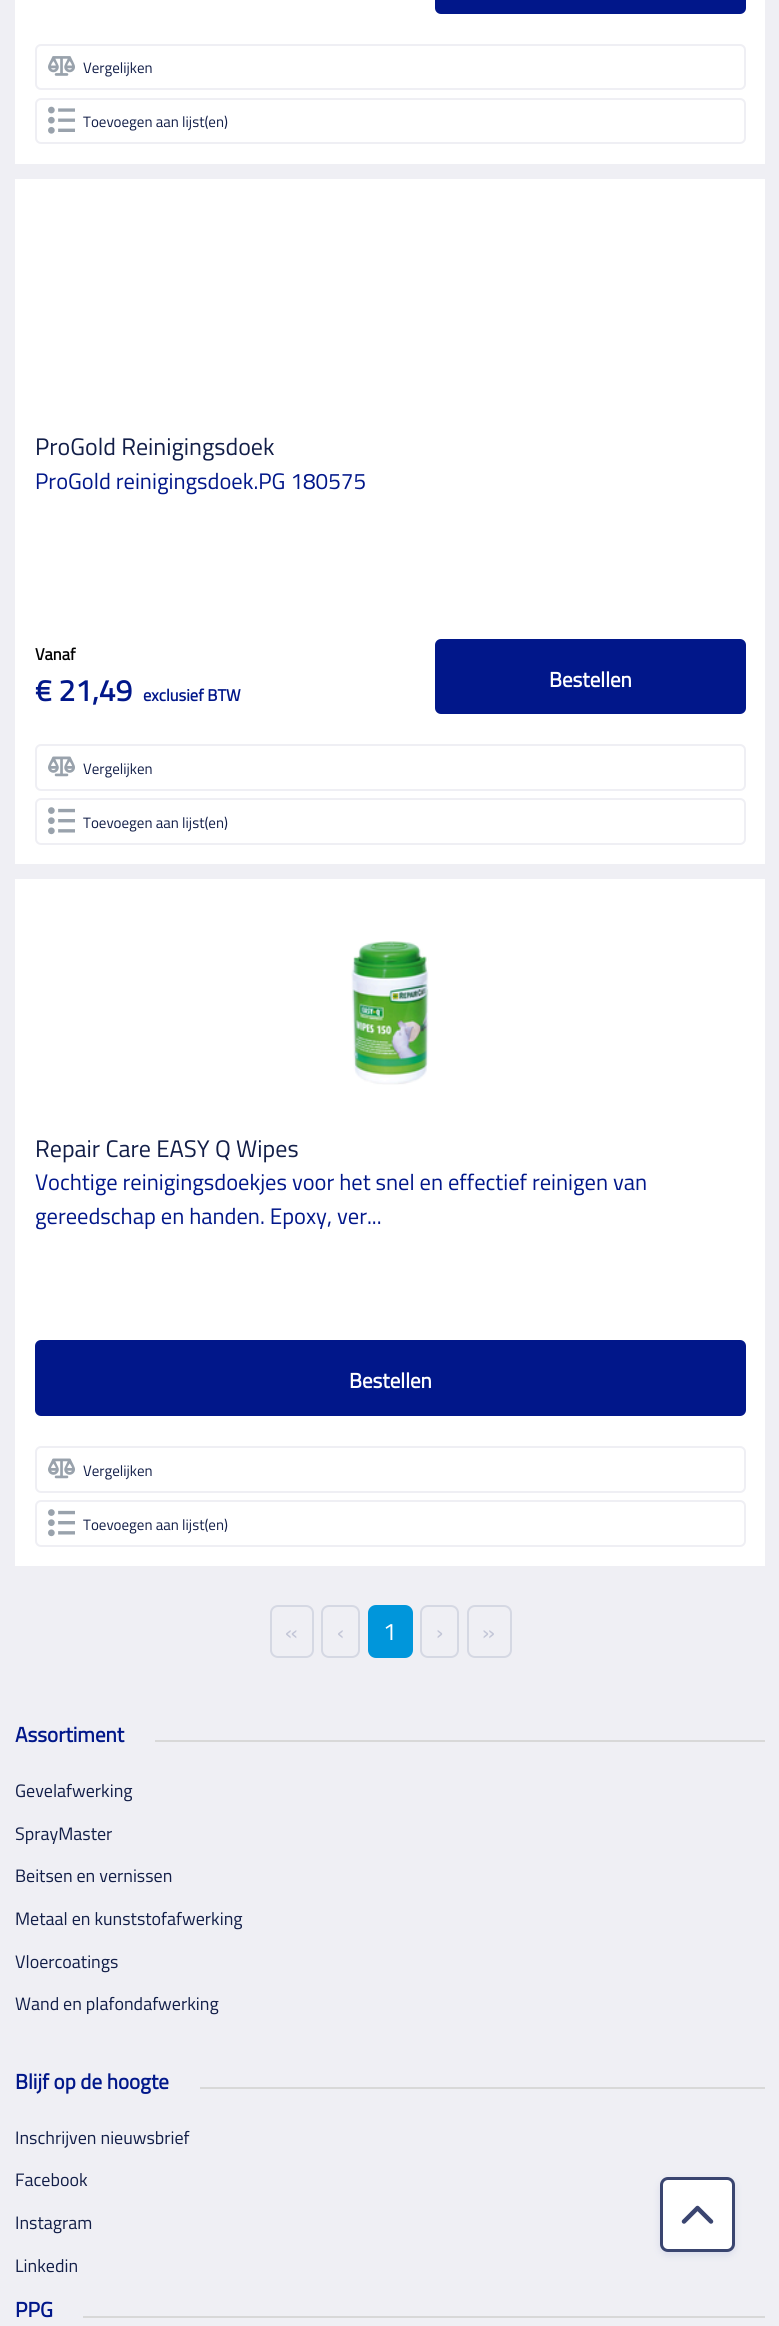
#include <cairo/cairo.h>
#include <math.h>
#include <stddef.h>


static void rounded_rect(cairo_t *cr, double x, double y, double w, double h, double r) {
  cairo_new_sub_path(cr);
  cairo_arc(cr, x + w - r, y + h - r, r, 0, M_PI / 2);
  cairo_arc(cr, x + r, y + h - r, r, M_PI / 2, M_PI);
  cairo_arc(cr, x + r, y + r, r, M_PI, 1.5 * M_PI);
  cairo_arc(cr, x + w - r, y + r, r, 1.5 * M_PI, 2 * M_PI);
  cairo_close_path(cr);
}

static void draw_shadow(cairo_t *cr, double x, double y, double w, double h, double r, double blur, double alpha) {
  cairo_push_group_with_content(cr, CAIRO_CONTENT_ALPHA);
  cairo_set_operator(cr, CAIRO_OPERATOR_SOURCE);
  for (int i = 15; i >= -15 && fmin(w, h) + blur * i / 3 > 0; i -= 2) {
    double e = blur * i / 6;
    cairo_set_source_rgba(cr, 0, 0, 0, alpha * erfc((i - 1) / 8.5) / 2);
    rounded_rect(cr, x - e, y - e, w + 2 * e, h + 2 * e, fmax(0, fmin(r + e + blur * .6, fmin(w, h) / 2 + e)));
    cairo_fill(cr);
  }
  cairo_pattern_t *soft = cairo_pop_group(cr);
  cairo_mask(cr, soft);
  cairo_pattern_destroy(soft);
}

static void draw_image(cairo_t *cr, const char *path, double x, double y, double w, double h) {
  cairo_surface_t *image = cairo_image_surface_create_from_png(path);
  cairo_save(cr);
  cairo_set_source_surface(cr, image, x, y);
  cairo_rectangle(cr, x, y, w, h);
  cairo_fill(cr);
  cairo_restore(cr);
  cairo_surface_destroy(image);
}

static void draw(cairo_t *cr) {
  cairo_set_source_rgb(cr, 239 / 255.0, 239 / 255.0, 244 / 255.0);
  cairo_paint(cr);
  cairo_set_source_rgb(cr, 1, 1, 1);
  cairo_rectangle(cr, 15, 0, 750, 164);
  cairo_fill(cr);
  cairo_set_source_rgb(cr, 1 / 255.0, 23 / 255.0, 138 / 255.0);
  rounded_rect(cr, 436, -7, 309, 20, 5);
  cairo_fill_preserve(cr);
  cairo_stroke(cr);
  rounded_rect(cr, 36, 45, 709, 44, 5);
  cairo_set_source_rgb(cr, 239 / 255.0, 239 / 255.0, 244 / 255.0);
  cairo_stroke(cr);
  draw_image(cr, "images/1.png", 48, 56, 27, 20);
  rounded_rect(cr, 36, 99, 709, 44, 5);
  cairo_stroke(cr);
  draw_image(cr, "images/2.png", 48, 106, 27, 28);
  cairo_set_source_rgb(cr, 1, 1, 1);
  cairo_rectangle(cr, 15, 179, 750, 685);
  cairo_fill(cr);
  cairo_set_source_rgb(cr, 1 / 255.0, 23 / 255.0, 138 / 255.0);
  rounded_rect(cr, 436, 640, 309, 73, 5);
  cairo_fill_preserve(cr);
  cairo_stroke(cr);
  rounded_rect(cr, 36, 745, 709, 45, 5);
  cairo_set_source_rgb(cr, 239 / 255.0, 239 / 255.0, 244 / 255.0);
  cairo_stroke(cr);
  draw_image(cr, "images/3.png", 48, 756, 27, 21);
  rounded_rect(cr, 36, 799, 709, 45, 5);
  cairo_stroke(cr);
  draw_image(cr, "images/4.png", 48, 807, 27, 28);
  cairo_set_source_rgb(cr, 1, 1, 1);
  cairo_rectangle(cr, 15, 879, 750, 687);
  cairo_fill(cr);
  draw_image(cr, "images/5.png", 351, 941, 78, 144);
  cairo_set_source_rgb(cr, 1 / 255.0, 23 / 255.0, 138 / 255.0);
  rounded_rect(cr, 36, 1341, 709, 74, 5);
  cairo_fill_preserve(cr);
  cairo_stroke(cr);
  rounded_rect(cr, 36, 1447, 709, 45, 5);
  cairo_set_source_rgb(cr, 239 / 255.0, 239 / 255.0, 244 / 255.0);
  cairo_stroke(cr);
  draw_image(cr, "images/3.png", 48, 1458, 27, 21);
  rounded_rect(cr, 36, 1501, 709, 45, 5);
  cairo_stroke(cr);
  draw_image(cr, "images/4.png", 48, 1509, 27, 28);
  rounded_rect(cr, 271, 1606, 42, 51, 7);
  cairo_set_source_rgb(cr, 213 / 255.0, 216 / 255.0, 227 / 255.0);
  cairo_stroke(cr);
  rounded_rect(cr, 322, 1606, 37, 51, 7);
  cairo_stroke(cr);
  cairo_set_source_rgb(cr, 0, 150 / 255.0, 219 / 255.0);
  rounded_rect(cr, 369, 1606, 43, 51, 7);
  cairo_fill_preserve(cr);
  cairo_stroke(cr);
  rounded_rect(cr, 421, 1606, 37, 51, 7);
  cairo_set_source_rgb(cr, 213 / 255.0, 216 / 255.0, 227 / 255.0);
  cairo_stroke(cr);
  rounded_rect(cr, 468, 1606, 43, 51, 7);
  cairo_stroke(cr);
  cairo_set_source_rgb(cr, 52 / 255.0, 68 / 255.0, 161 / 255.0);
  draw_shadow(cr, 660, 2180, 75, 75, 8, 4, 0.12);
  cairo_set_source_rgb(cr, 1, 1, 1);
  rounded_rect(cr, 661.5, 2178.5, 72, 72, 6.5);
  cairo_fill_preserve(cr);
  cairo_set_source_rgb(cr, 58 / 255.0, 69 / 255.0, 112 / 255.0);
  cairo_set_line_width(cr, 3);
  cairo_stroke(cr);
  draw_image(cr, "images/6.png", 681, 2205, 33, 19);
  cairo_set_source_rgb(cr, 216 / 255.0, 216 / 255.0, 216 / 255.0);
  cairo_rectangle(cr, 155, 1740, 610, 2);
  cairo_fill(cr);
  cairo_rectangle(cr, 200, 2087, 565, 2);
  cairo_fill(cr);
  cairo_rectangle(cr, 83, 2316, 682, 2);
  cairo_fill(cr);
  cairo_select_font_face(cr, "Titillium Web", CAIRO_FONT_SLANT_NORMAL, CAIRO_FONT_WEIGHT_NORMAL);
  cairo_set_font_size(cr, 15);
  cairo_set_source_rgb(cr, 18 / 255.0, 30 / 255.0, 72 / 255.0);
  cairo_move_to(cr, 83, 73);
  cairo_show_text(cr, "Vergelijken");
  cairo_move_to(cr, 83, 127);
  cairo_show_text(cr, "Toevoegen aan lijst(en)");
  cairo_set_font_size(cr, 24);
  cairo_move_to(cr, 35, 455);
  cairo_show_text(cr, "ProGold Reinigingsdoek");
  cairo_set_font_size(cr, 22.5);
  cairo_set_source_rgb(cr, 1 / 255.0, 23 / 255.0, 138 / 255.0);
  cairo_move_to(cr, 35, 489);
  cairo_show_text(cr, "ProGold reinigingsdoek.PG 180575");
  cairo_select_font_face(cr, "Titillium Web", CAIRO_FONT_SLANT_NORMAL, CAIRO_FONT_WEIGHT_BOLD);
  cairo_set_font_size(cr, 16.5);
  cairo_set_source_rgb(cr, 0, 0, 0);
  cairo_move_to(cr, 35, 660);
  cairo_show_text(cr, "Vanaf");
  cairo_set_font_size(cr, 30);
  cairo_set_source_rgb(cr, 1 / 255.0, 23 / 255.0, 138 / 255.0);
  cairo_move_to(cr, 35, 701);
  cairo_show_text(cr, "€ 21,49");
  cairo_set_font_size(cr, 16.5);
  cairo_move_to(cr, 143, 701);
  cairo_show_text(cr, "exclusief BTW");
  cairo_set_font_size(cr, 21);
  cairo_set_source_rgb(cr, 1, 1, 1);
  cairo_move_to(cr, 549, 687);
  cairo_show_text(cr, "Bestellen");
  cairo_select_font_face(cr, "Titillium Web", CAIRO_FONT_SLANT_NORMAL, CAIRO_FONT_WEIGHT_NORMAL);
  cairo_set_font_size(cr, 15);
  cairo_set_source_rgb(cr, 18 / 255.0, 30 / 255.0, 72 / 255.0);
  cairo_move_to(cr, 83, 774);
  cairo_show_text(cr, "Vergelijken");
  cairo_move_to(cr, 83, 828);
  cairo_show_text(cr, "Toevoegen aan lijst(en)");
  cairo_set_font_size(cr, 24);
  cairo_move_to(cr, 35, 1157);
  cairo_show_text(cr, "Repair Care EASY Q Wipes");
  cairo_set_font_size(cr, 22.5);
  cairo_set_source_rgb(cr, 1 / 255.0, 23 / 255.0, 138 / 255.0);
  cairo_move_to(cr, 35, 1190);
  cairo_show_text(cr, "Vochtige reinigingsdoekjes voor het snel en effectief reinigen van");
  cairo_move_to(cr, 35, 1224);
  cairo_show_text(cr, "gereedschap en handen. Epoxy, ver...");
  cairo_select_font_face(cr, "Titillium Web", CAIRO_FONT_SLANT_NORMAL, CAIRO_FONT_WEIGHT_BOLD);
  cairo_set_font_size(cr, 21);
  cairo_set_source_rgb(cr, 1, 1, 1);
  cairo_move_to(cr, 349, 1388);
  cairo_show_text(cr, "Bestellen");
  cairo_select_font_face(cr, "Titillium Web", CAIRO_FONT_SLANT_NORMAL, CAIRO_FONT_WEIGHT_NORMAL);
  cairo_set_font_size(cr, 15);
  cairo_set_source_rgb(cr, 18 / 255.0, 30 / 255.0, 72 / 255.0);
  cairo_move_to(cr, 83, 1476);
  cairo_show_text(cr, "Vergelijken");
  cairo_move_to(cr, 83, 1530);
  cairo_show_text(cr, "Toevoegen aan lijst(en)");
  cairo_set_font_size(cr, 24);
  cairo_set_source_rgb(cr, 195 / 255.0, 198 / 255.0, 215 / 255.0);
  cairo_move_to(cr, 285, 1640);
  cairo_show_text(cr, "«");
  cairo_move_to(cr, 337, 1640);
  cairo_show_text(cr, "‹");
  cairo_set_source_rgb(cr, 1, 1, 1);
  cairo_move_to(cr, 383, 1640);
  cairo_show_text(cr, "1");
  cairo_set_source_rgb(cr, 195 / 255.0, 198 / 255.0, 215 / 255.0);
  cairo_move_to(cr, 436, 1640);
  cairo_show_text(cr, "›");
  cairo_move_to(cr, 482, 1640);
  cairo_show_text(cr, "»");
  cairo_select_font_face(cr, "Titillium Web", CAIRO_FONT_SLANT_NORMAL, CAIRO_FONT_WEIGHT_BOLD);
  cairo_set_font_size(cr, 21);
  cairo_set_source_rgb(cr, 1 / 255.0, 23 / 255.0, 138 / 255.0);
  cairo_move_to(cr, 15, 1742);
  cairo_show_text(cr, "Assortiment");
  cairo_select_font_face(cr, "Titillium Web", CAIRO_FONT_SLANT_NORMAL, CAIRO_FONT_WEIGHT_NORMAL);
  cairo_set_font_size(cr, 18);
  cairo_set_source_rgb(cr, 18 / 255.0, 30 / 255.0, 72 / 255.0);
  cairo_move_to(cr, 15, 1797);
  cairo_show_text(cr, "Gevelafwerking");
  cairo_move_to(cr, 15, 1840);
  cairo_show_text(cr, "SprayMaster");
  cairo_move_to(cr, 15, 1882);
  cairo_show_text(cr, "Beitsen en vernissen");
  cairo_move_to(cr, 15, 1925);
  cairo_show_text(cr, "Metaal en kunststofafwerking");
  cairo_move_to(cr, 15, 1968);
  cairo_show_text(cr, "Vloercoatings");
  cairo_move_to(cr, 15, 2010);
  cairo_show_text(cr, "Wand en plafondafwerking");
  cairo_select_font_face(cr, "Titillium Web", CAIRO_FONT_SLANT_NORMAL, CAIRO_FONT_WEIGHT_BOLD);
  cairo_set_font_size(cr, 21);
  cairo_set_source_rgb(cr, 1 / 255.0, 23 / 255.0, 138 / 255.0);
  cairo_move_to(cr, 15, 2089);
  cairo_show_text(cr, "Blijf op de hoogte");
  cairo_select_font_face(cr, "Titillium Web", CAIRO_FONT_SLANT_NORMAL, CAIRO_FONT_WEIGHT_NORMAL);
  cairo_set_font_size(cr, 18);
  cairo_set_source_rgb(cr, 18 / 255.0, 30 / 255.0, 72 / 255.0);
  cairo_move_to(cr, 15, 2144);
  cairo_show_text(cr, "Inschrijven nieuwsbrief");
  cairo_move_to(cr, 15, 2186);
  cairo_show_text(cr, "Facebook");
  cairo_move_to(cr, 15, 2229);
  cairo_show_text(cr, "Instagram");
  cairo_move_to(cr, 15, 2272);
  cairo_show_text(cr, "Linkedin");
  cairo_select_font_face(cr, "Titillium Web", CAIRO_FONT_SLANT_NORMAL, CAIRO_FONT_WEIGHT_BOLD);
  cairo_set_font_size(cr, 21);
  cairo_set_source_rgb(cr, 1 / 255.0, 23 / 255.0, 138 / 255.0);
  cairo_move_to(cr, 15, 2317);
  cairo_show_text(cr, "PPG");
}

int main(void) {
  cairo_surface_t *surface = cairo_image_surface_create(CAIRO_FORMAT_RGB24, 779, 2326);
  cairo_t *cr = cairo_create(surface);
  cairo_font_options_t *options = cairo_font_options_create();
  cairo_font_options_set_hint_metrics(options, CAIRO_HINT_METRICS_OFF);
  cairo_font_options_set_hint_style(options, CAIRO_HINT_STYLE_NONE);
  cairo_set_font_options(cr, options);
  cairo_set_miter_limit(cr, 4);
  draw(cr);
  cairo_surface_write_to_png(surface, "out.png");
  cairo_font_options_destroy(options);
  cairo_destroy(cr);
  cairo_surface_destroy(surface);
  return 0;
}
